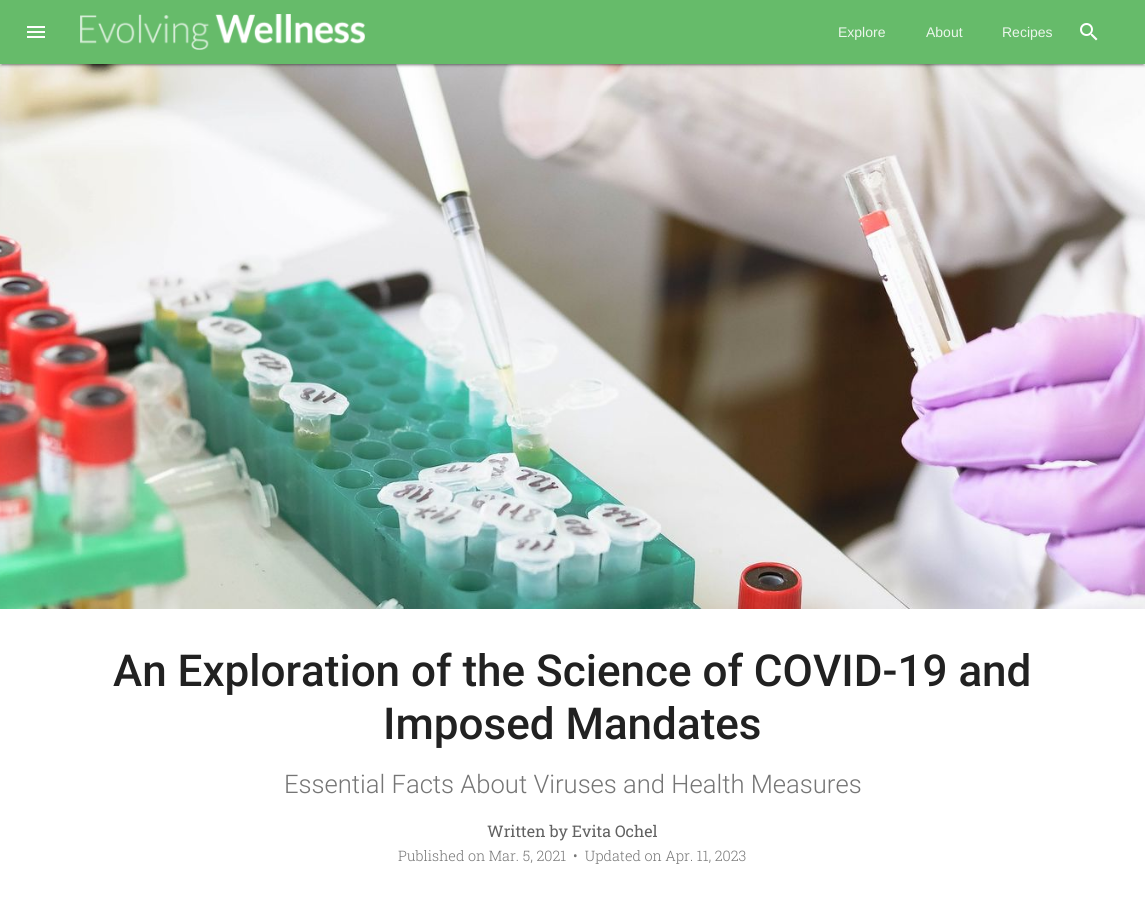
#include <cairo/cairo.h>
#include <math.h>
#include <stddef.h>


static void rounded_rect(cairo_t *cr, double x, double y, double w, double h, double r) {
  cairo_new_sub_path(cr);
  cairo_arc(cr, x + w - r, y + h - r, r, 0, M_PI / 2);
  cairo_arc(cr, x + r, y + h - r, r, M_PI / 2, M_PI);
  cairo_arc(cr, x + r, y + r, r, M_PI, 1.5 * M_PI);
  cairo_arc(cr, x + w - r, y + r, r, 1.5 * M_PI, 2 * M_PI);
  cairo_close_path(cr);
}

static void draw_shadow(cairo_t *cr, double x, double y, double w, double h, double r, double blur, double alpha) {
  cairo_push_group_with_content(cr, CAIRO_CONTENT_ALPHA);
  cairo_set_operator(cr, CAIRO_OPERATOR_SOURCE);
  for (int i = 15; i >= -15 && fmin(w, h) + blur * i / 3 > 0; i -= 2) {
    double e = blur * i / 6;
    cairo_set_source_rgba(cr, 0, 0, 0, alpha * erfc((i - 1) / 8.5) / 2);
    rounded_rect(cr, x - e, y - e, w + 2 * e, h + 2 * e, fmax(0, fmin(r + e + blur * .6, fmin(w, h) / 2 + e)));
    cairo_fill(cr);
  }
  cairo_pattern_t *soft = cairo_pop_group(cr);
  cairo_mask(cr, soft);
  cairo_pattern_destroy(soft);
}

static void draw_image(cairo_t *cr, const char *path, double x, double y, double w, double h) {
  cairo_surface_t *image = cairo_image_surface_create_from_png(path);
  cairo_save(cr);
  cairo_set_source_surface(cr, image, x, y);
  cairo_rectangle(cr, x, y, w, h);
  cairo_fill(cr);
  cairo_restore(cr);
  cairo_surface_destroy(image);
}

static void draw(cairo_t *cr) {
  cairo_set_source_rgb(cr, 1, 1, 1);
  cairo_paint(cr);
  draw_image(cr, "images/4.png", 0, 64, 1145, 545);
  cairo_set_source_rgb(cr, 0, 0, 0);
  draw_shadow(cr, 0, 1, 1145, 64, 0, 2.5, 0.12);
  draw_shadow(cr, 2, 5, 1141, 60, 0, 0.5, 0.2);
  draw_shadow(cr, 0, 2, 1145, 64, 0, 1, 0.14);
  cairo_set_source_rgb(cr, 102 / 255.0, 187 / 255.0, 106 / 255.0);
  cairo_rectangle(cr, 0, 0, 1145, 64);
  cairo_fill(cr);
  draw_image(cr, "images/1.png", 27, 26, 18, 12);
  draw_image(cr, "images/2.png", 80, 14, 285, 36);
  draw_image(cr, "images/3.png", 1080, 23, 18, 18);
  cairo_select_font_face(cr, "Liberation Sans", CAIRO_FONT_SLANT_NORMAL, CAIRO_FONT_WEIGHT_NORMAL);
  cairo_set_font_size(cr, 14);
  cairo_set_source_rgb(cr, 235 / 255.0, 246 / 255.0, 236 / 255.0);
  cairo_move_to(cr, 838, 37);
  cairo_show_text(cr, "Explore");
  cairo_move_to(cr, 926, 37);
  cairo_show_text(cr, "About");
  cairo_move_to(cr, 1002, 37);
  cairo_show_text(cr, "Recipes");
  cairo_select_font_face(cr, "Roboto Medium", CAIRO_FONT_SLANT_NORMAL, CAIRO_FONT_WEIGHT_NORMAL);
  cairo_set_font_size(cr, 44);
  cairo_set_source_rgb(cr, 33 / 255.0, 33 / 255.0, 33 / 255.0);
  cairo_move_to(cr, 113, 686);
  cairo_show_text(cr, "An Exploration of the Science of COVID-19 and");
  cairo_move_to(cr, 383, 739);
  cairo_show_text(cr, "Imposed Mandates");
  cairo_select_font_face(cr, "Roboto Light", CAIRO_FONT_SLANT_NORMAL, CAIRO_FONT_WEIGHT_NORMAL);
  cairo_set_font_size(cr, 25.6);
  cairo_set_source_rgb(cr, 117 / 255.0, 117 / 255.0, 117 / 255.0);
  cairo_move_to(cr, 284, 793);
  cairo_show_text(cr, "Essential Facts About Viruses and Health Measures");
  cairo_select_font_face(cr, "Roboto Slab", CAIRO_FONT_SLANT_NORMAL, CAIRO_FONT_WEIGHT_NORMAL);
  cairo_set_font_size(cr, 16);
  cairo_set_source_rgb(cr, 97 / 255.0, 97 / 255.0, 97 / 255.0);
  cairo_move_to(cr, 487, 837);
  cairo_show_text(cr, "Written by Evita Ochel");
  cairo_select_font_face(cr, "Roboto Slab Light", CAIRO_FONT_SLANT_NORMAL, CAIRO_FONT_WEIGHT_NORMAL);
  cairo_set_font_size(cr, 14.4);
  cairo_set_source_rgb(cr, 117 / 255.0, 117 / 255.0, 117 / 255.0);
  cairo_move_to(cr, 398, 861);
  cairo_show_text(cr, "Published on Mar. 5, 2021");
  cairo_move_to(cr, 573, 861);
  cairo_show_text(cr, "•  Updated on Apr. 11, 2023");
}

int main(void) {
  cairo_surface_t *surface = cairo_image_surface_create(CAIRO_FORMAT_RGB24, 1145, 909);
  cairo_t *cr = cairo_create(surface);
  cairo_font_options_t *options = cairo_font_options_create();
  cairo_font_options_set_hint_metrics(options, CAIRO_HINT_METRICS_OFF);
  cairo_font_options_set_hint_style(options, CAIRO_HINT_STYLE_NONE);
  cairo_set_font_options(cr, options);
  cairo_set_miter_limit(cr, 4);
  draw(cr);
  cairo_surface_write_to_png(surface, "out.png");
  cairo_font_options_destroy(options);
  cairo_destroy(cr);
  cairo_surface_destroy(surface);
  return 0;
}
